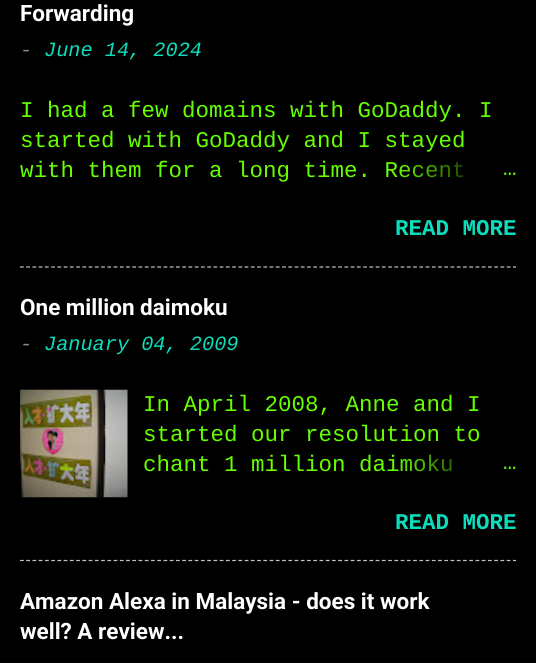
#include <cairo/cairo.h>
#include <math.h>
#include <stddef.h>


static void draw_image(cairo_t *cr, const char *path, double x, double y, double w, double h) {
  cairo_surface_t *image = cairo_image_surface_create_from_png(path);
  cairo_save(cr);
  cairo_set_source_surface(cr, image, x, y);
  cairo_rectangle(cr, x, y, w, h);
  cairo_fill(cr);
  cairo_restore(cr);
  cairo_surface_destroy(image);
}

static void draw(cairo_t *cr) {
  cairo_pattern_t *gradient;
  cairo_set_source_rgb(cr, 0, 0, 0);
  cairo_paint(cr);
  cairo_new_path(cr);
  cairo_move_to(cr, 20, 267);
  cairo_line_to(cr, 516, 267);
  cairo_set_source_rgb(cr, 195 / 255.0, 195 / 255.0, 195 / 255.0);
  cairo_set_line_width(cr, 1.2);
  cairo_set_dash(cr, (double[]){3.75, 2.49}, 2, 0);
  cairo_stroke(cr);
  draw_image(cr, "images/1.png", 20, 389, 108, 109);
  cairo_new_path(cr);
  cairo_move_to(cr, 20, 560.5);
  cairo_line_to(cr, 516, 560.5);
  cairo_stroke(cr);
  cairo_select_font_face(cr, "Roboto", CAIRO_FONT_SLANT_NORMAL, CAIRO_FONT_WEIGHT_BOLD);
  cairo_set_font_size(cr, 22.5);
  cairo_set_source_rgb(cr, 1, 1, 1);
  cairo_move_to(cr, 20, 21);
  cairo_show_text(cr, "Forwarding");
  cairo_select_font_face(cr, "Liberation Mono", CAIRO_FONT_SLANT_ITALIC, CAIRO_FONT_WEIGHT_NORMAL);
  cairo_set_font_size(cr, 20.25);
  cairo_set_source_rgb(cr, 134 / 255.0, 134 / 255.0, 134 / 255.0);
  cairo_move_to(cr, 20, 56);
  cairo_show_text(cr, "-");
  cairo_set_source_rgb(cr, 12 / 255.0, 221 / 255.0, 189 / 255.0);
  cairo_move_to(cr, 44, 56);
  cairo_show_text(cr, "June 14, 2024");
  cairo_select_font_face(cr, "Liberation Mono", CAIRO_FONT_SLANT_NORMAL, CAIRO_FONT_WEIGHT_NORMAL);
  cairo_set_font_size(cr, 22.5);
  cairo_set_source_rgb(cr, 102 / 255.0, 1, 0);
  cairo_move_to(cr, 20, 117);
  cairo_show_text(cr, "I had a few domains with GoDaddy. I");
  cairo_move_to(cr, 20, 147);
  cairo_show_text(cr, "started with GoDaddy and I stayed");
  cairo_move_to(cr, 20, 177);
  cairo_show_text(cr, "with them for a long time. Recent");
  gradient = cairo_pattern_create_linear(516, 171, 396, 171);
  cairo_pattern_add_color_stop_rgba(gradient, 0, 0, 0, 0, 1);
  cairo_pattern_add_color_stop_rgba(gradient, 0.2, 0, 0, 0, 1);
  cairo_pattern_add_color_stop_rgba(gradient, 1, 0, 0, 0, 0);
  cairo_set_source(cr, gradient);
  cairo_pattern_destroy(gradient);
  cairo_rectangle(cr, 399, 162, 65, 16);
  cairo_fill(cr);
  cairo_set_source_rgb(cr, 102 / 255.0, 1, 0);
  cairo_move_to(cr, 503, 175);
  cairo_show_text(cr, "…");
  cairo_select_font_face(cr, "Liberation Mono", CAIRO_FONT_SLANT_NORMAL, CAIRO_FONT_WEIGHT_BOLD);
  cairo_set_source_rgb(cr, 12 / 255.0, 221 / 255.0, 189 / 255.0);
  cairo_move_to(cr, 395, 235);
  cairo_show_text(cr, "READ MORE");
  cairo_select_font_face(cr, "Roboto", CAIRO_FONT_SLANT_NORMAL, CAIRO_FONT_WEIGHT_BOLD);
  cairo_set_source_rgb(cr, 1, 1, 1);
  cairo_move_to(cr, 20, 315);
  cairo_show_text(cr, "One million daimoku");
  cairo_select_font_face(cr, "Liberation Mono", CAIRO_FONT_SLANT_ITALIC, CAIRO_FONT_WEIGHT_NORMAL);
  cairo_set_font_size(cr, 20.25);
  cairo_set_source_rgb(cr, 134 / 255.0, 134 / 255.0, 134 / 255.0);
  cairo_move_to(cr, 20, 350);
  cairo_show_text(cr, "-");
  cairo_set_source_rgb(cr, 12 / 255.0, 221 / 255.0, 189 / 255.0);
  cairo_move_to(cr, 44, 350);
  cairo_show_text(cr, "January 04, 2009");
  cairo_select_font_face(cr, "Liberation Mono", CAIRO_FONT_SLANT_NORMAL, CAIRO_FONT_WEIGHT_NORMAL);
  cairo_set_font_size(cr, 22.5);
  cairo_set_source_rgb(cr, 102 / 255.0, 1, 0);
  cairo_move_to(cr, 143, 411);
  cairo_show_text(cr, "In April 2008, Anne and I");
  cairo_move_to(cr, 143, 441);
  cairo_show_text(cr, "started our resolution to");
  cairo_move_to(cr, 143, 471);
  cairo_show_text(cr, "chant 1 million daimoku");
  gradient = cairo_pattern_create_linear(516, 465, 396, 465);
  cairo_pattern_add_color_stop_rgba(gradient, 0, 0, 0, 0, 1);
  cairo_pattern_add_color_stop_rgba(gradient, 0.2, 0, 0, 0, 1);
  cairo_pattern_add_color_stop_rgba(gradient, 1, 0, 0, 0, 0);
  cairo_set_source(cr, gradient);
  cairo_pattern_destroy(gradient);
  cairo_rectangle(cr, 398, 454, 54, 18);
  cairo_fill(cr);
  cairo_set_source_rgb(cr, 102 / 255.0, 1, 0);
  cairo_move_to(cr, 503, 469);
  cairo_show_text(cr, "…");
  cairo_select_font_face(cr, "Liberation Mono", CAIRO_FONT_SLANT_NORMAL, CAIRO_FONT_WEIGHT_BOLD);
  cairo_set_source_rgb(cr, 12 / 255.0, 221 / 255.0, 189 / 255.0);
  cairo_move_to(cr, 395, 529);
  cairo_show_text(cr, "READ MORE");
  cairo_select_font_face(cr, "Roboto", CAIRO_FONT_SLANT_NORMAL, CAIRO_FONT_WEIGHT_BOLD);
  cairo_set_source_rgb(cr, 1, 1, 1);
  cairo_move_to(cr, 20, 609);
  cairo_show_text(cr, "Amazon Alexa in Malaysia - does it work");
  cairo_move_to(cr, 20, 639);
  cairo_show_text(cr, "well? A review...");
}

int main(void) {
  cairo_surface_t *surface = cairo_image_surface_create(CAIRO_FORMAT_RGB24, 536, 663);
  cairo_t *cr = cairo_create(surface);
  cairo_font_options_t *options = cairo_font_options_create();
  cairo_font_options_set_hint_metrics(options, CAIRO_HINT_METRICS_OFF);
  cairo_font_options_set_hint_style(options, CAIRO_HINT_STYLE_NONE);
  cairo_set_font_options(cr, options);
  cairo_set_miter_limit(cr, 4);
  draw(cr);
  cairo_surface_write_to_png(surface, "out.png");
  cairo_font_options_destroy(options);
  cairo_destroy(cr);
  cairo_surface_destroy(surface);
  return 0;
}
